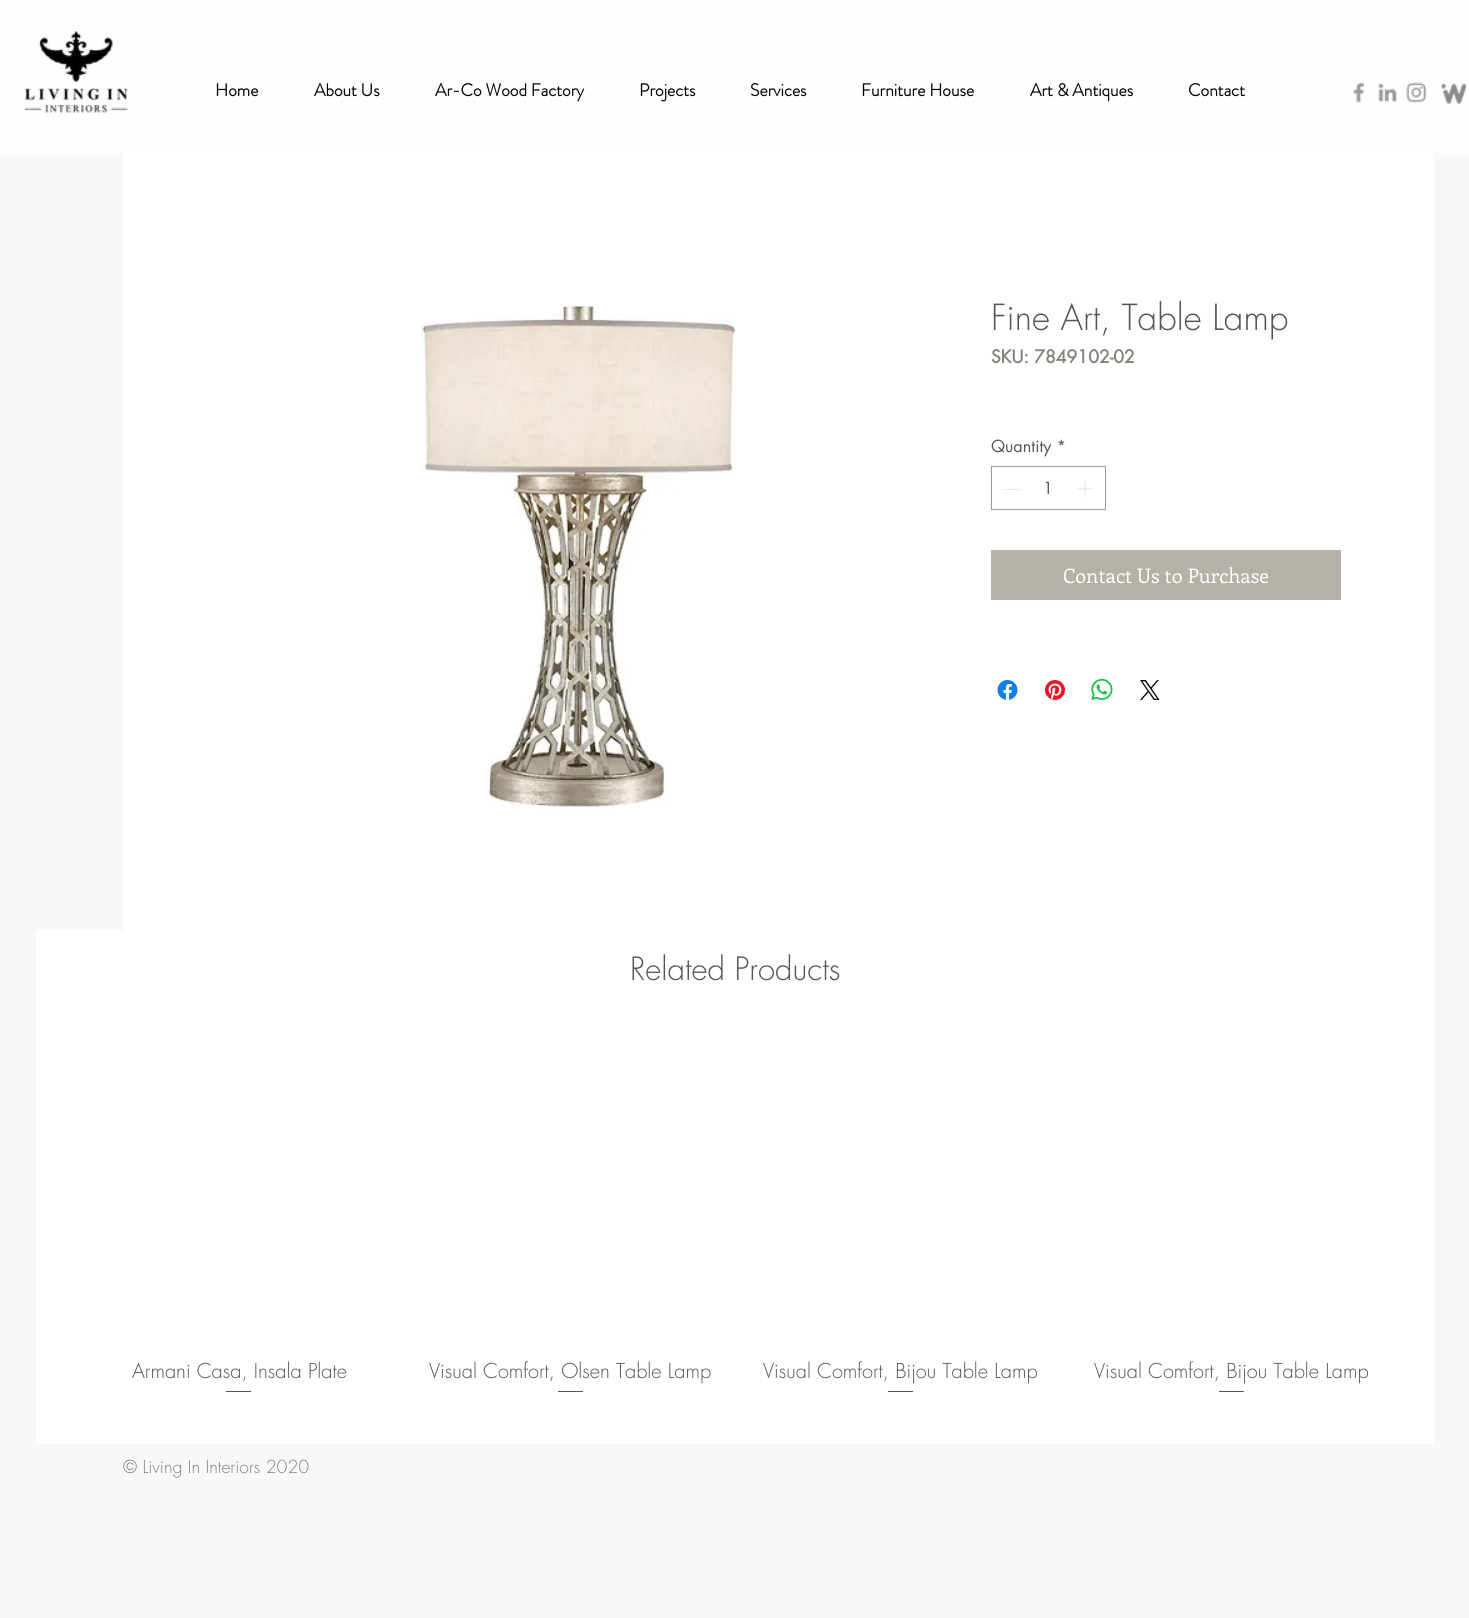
#include <cairo/cairo.h>
#include <math.h>
#include <stddef.h>


static void draw_image(cairo_t *cr, const char *path, double x, double y, double w, double h) {
  cairo_surface_t *image = cairo_image_surface_create_from_png(path);
  cairo_save(cr);
  cairo_set_source_surface(cr, image, x, y);
  cairo_rectangle(cr, x, y, w, h);
  cairo_fill(cr);
  cairo_restore(cr);
  cairo_surface_destroy(image);
}

static void draw(cairo_t *cr) {
  cairo_set_source_rgb(cr, 248 / 255.0, 248 / 255.0, 248 / 255.0);
  cairo_paint(cr);
  cairo_set_source_rgb(cr, 254 / 255.0, 254 / 255.0, 254 / 255.0);
  cairo_rectangle(cr, 0, 0, 1469, 153);
  cairo_fill(cr);
  draw_image(cr, "images/1.png", 24, 31, 104, 82);
  draw_image(cr, "images/2.png", 1353, 82, 11, 21);
  draw_image(cr, "images/3.png", 1378, 83, 19, 19);
  draw_image(cr, "images/4.png", 1406, 82, 21, 21);
  draw_image(cr, "images/5.png", 1441, 83, 25, 21);
  cairo_set_source_rgb(cr, 1, 1, 1);
  cairo_rectangle(cr, 123, 153, 1311, 777);
  cairo_fill(cr);
  draw_image(cr, "images/6.png", 421, 305, 315, 504);
  cairo_rectangle(cr, 991.5, 466.5, 114, 43);
  cairo_set_source_rgb(cr, 155 / 255.0, 153 / 255.0, 151 / 255.0);
  cairo_set_line_width(cr, 1);
  cairo_stroke(cr);
  cairo_set_source_rgb(cr, 227 / 255.0, 227 / 255.0, 227 / 255.0);
  cairo_rectangle(cr, 1005, 489, 16, 1);
  cairo_fill(cr);
  draw_image(cr, "images/7.png", 1077, 481, 16, 16);
  cairo_set_source_rgb(cr, 181 / 255.0, 177 / 255.0, 169 / 255.0);
  cairo_rectangle(cr, 991, 550, 350, 50);
  cairo_fill(cr);
  draw_image(cr, "images/8.png", 997, 680, 21, 20);
  draw_image(cr, "images/9.png", 1045, 680, 20, 20);
  draw_image(cr, "images/10.png", 1091, 678, 22, 23);
  draw_image(cr, "images/11.png", 1140, 680, 20, 20);
  cairo_set_source_rgb(cr, 1, 1, 1);
  cairo_rectangle(cr, 36, 930, 1398, 514);
  cairo_fill(cr);
  cairo_set_source_rgb(cr, 88 / 255.0, 85 / 255.0, 81 / 255.0);
  cairo_rectangle(cr, 226, 1391, 25, 1);
  cairo_fill(cr);
  cairo_rectangle(cr, 558, 1391, 25, 1);
  cairo_fill(cr);
  cairo_rectangle(cr, 888, 1391, 25, 1);
  cairo_fill(cr);
  cairo_rectangle(cr, 1219, 1391, 25, 1);
  cairo_fill(cr);
  cairo_select_font_face(cr, "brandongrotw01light", CAIRO_FONT_SLANT_NORMAL, CAIRO_FONT_WEIGHT_BOLD);
  cairo_set_font_size(cr, 17.5);
  cairo_set_source_rgb(cr, 0, 0, 0);
  cairo_move_to(cr, 215, 96);
  cairo_show_text(cr, "Home");
  cairo_move_to(cr, 314, 96);
  cairo_show_text(cr, "About Us");
  cairo_move_to(cr, 435, 96);
  cairo_show_text(cr, "Ar-Co Wood Factory");
  cairo_move_to(cr, 639, 96);
  cairo_show_text(cr, "Projects");
  cairo_move_to(cr, 750, 96);
  cairo_show_text(cr, "Services");
  cairo_move_to(cr, 861, 96);
  cairo_show_text(cr, "Furniture House");
  cairo_move_to(cr, 1030, 96);
  cairo_show_text(cr, "Art & Antiques");
  cairo_move_to(cr, 1188, 96);
  cairo_show_text(cr, "Contact");
  cairo_select_font_face(cr, "futura Light", CAIRO_FONT_SLANT_NORMAL, CAIRO_FONT_WEIGHT_NORMAL);
  cairo_set_font_size(cr, 35);
  cairo_set_source_rgb(cr, 88 / 255.0, 85 / 255.0, 81 / 255.0);
  cairo_move_to(cr, 991, 330);
  cairo_show_text(cr, "Fine Art, Table Lamp");
  cairo_select_font_face(cr, "futura", CAIRO_FONT_SLANT_NORMAL, CAIRO_FONT_WEIGHT_BOLD);
  cairo_set_font_size(cr, 17.5);
  cairo_set_source_rgb(cr, 132 / 255.0, 128 / 255.0, 121 / 255.0);
  cairo_move_to(cr, 991, 363);
  cairo_show_text(cr, "SKU: 7849102-02");
  cairo_select_font_face(cr, "futura", CAIRO_FONT_SLANT_NORMAL, CAIRO_FONT_WEIGHT_NORMAL);
  cairo_set_font_size(cr, 16.25);
  cairo_set_source_rgb(cr, 88 / 255.0, 85 / 255.0, 81 / 255.0);
  cairo_move_to(cr, 991, 452);
  cairo_show_text(cr, "Quantity *");
  cairo_move_to(cr, 1043, 494);
  cairo_show_text(cr, "1");
  cairo_select_font_face(cr, "Enriqueta", CAIRO_FONT_SLANT_NORMAL, CAIRO_FONT_WEIGHT_NORMAL);
  cairo_set_font_size(cr, 20);
  cairo_set_source_rgb(cr, 1, 1, 1);
  cairo_move_to(cr, 1063, 583);
  cairo_show_text(cr, "Contact Us to Purchase");
  cairo_select_font_face(cr, "futura Light", CAIRO_FONT_SLANT_NORMAL, CAIRO_FONT_WEIGHT_NORMAL);
  cairo_set_font_size(cr, 31.25);
  cairo_set_source_rgb(cr, 88 / 255.0, 85 / 255.0, 81 / 255.0);
  cairo_move_to(cr, 630, 980);
  cairo_show_text(cr, "Related Products");
  cairo_set_font_size(cr, 20);
  cairo_move_to(cr, 132, 1378);
  cairo_show_text(cr, "Armani Casa, Insala Plate");
  cairo_move_to(cr, 429, 1378);
  cairo_show_text(cr, "Visual Comfort, Olsen Table Lamp");
  cairo_move_to(cr, 763, 1378);
  cairo_show_text(cr, "Visual Comfort, Bijou Table Lamp");
  cairo_move_to(cr, 1094, 1378);
  cairo_show_text(cr, "Visual Comfort, Bijou Table Lamp");
  cairo_set_font_size(cr, 17.5);
  cairo_set_source_rgb(cr, 132 / 255.0, 128 / 255.0, 121 / 255.0);
  cairo_move_to(cr, 123, 1473);
  cairo_show_text(cr, "© Living In Interiors 2020");
}

int main(void) {
  cairo_surface_t *surface = cairo_image_surface_create(CAIRO_FORMAT_RGB24, 1469, 1618);
  cairo_t *cr = cairo_create(surface);
  cairo_font_options_t *options = cairo_font_options_create();
  cairo_font_options_set_hint_metrics(options, CAIRO_HINT_METRICS_OFF);
  cairo_font_options_set_hint_style(options, CAIRO_HINT_STYLE_NONE);
  cairo_set_font_options(cr, options);
  cairo_set_miter_limit(cr, 4);
  draw(cr);
  cairo_surface_write_to_png(surface, "out.png");
  cairo_font_options_destroy(options);
  cairo_destroy(cr);
  cairo_surface_destroy(surface);
  return 0;
}
